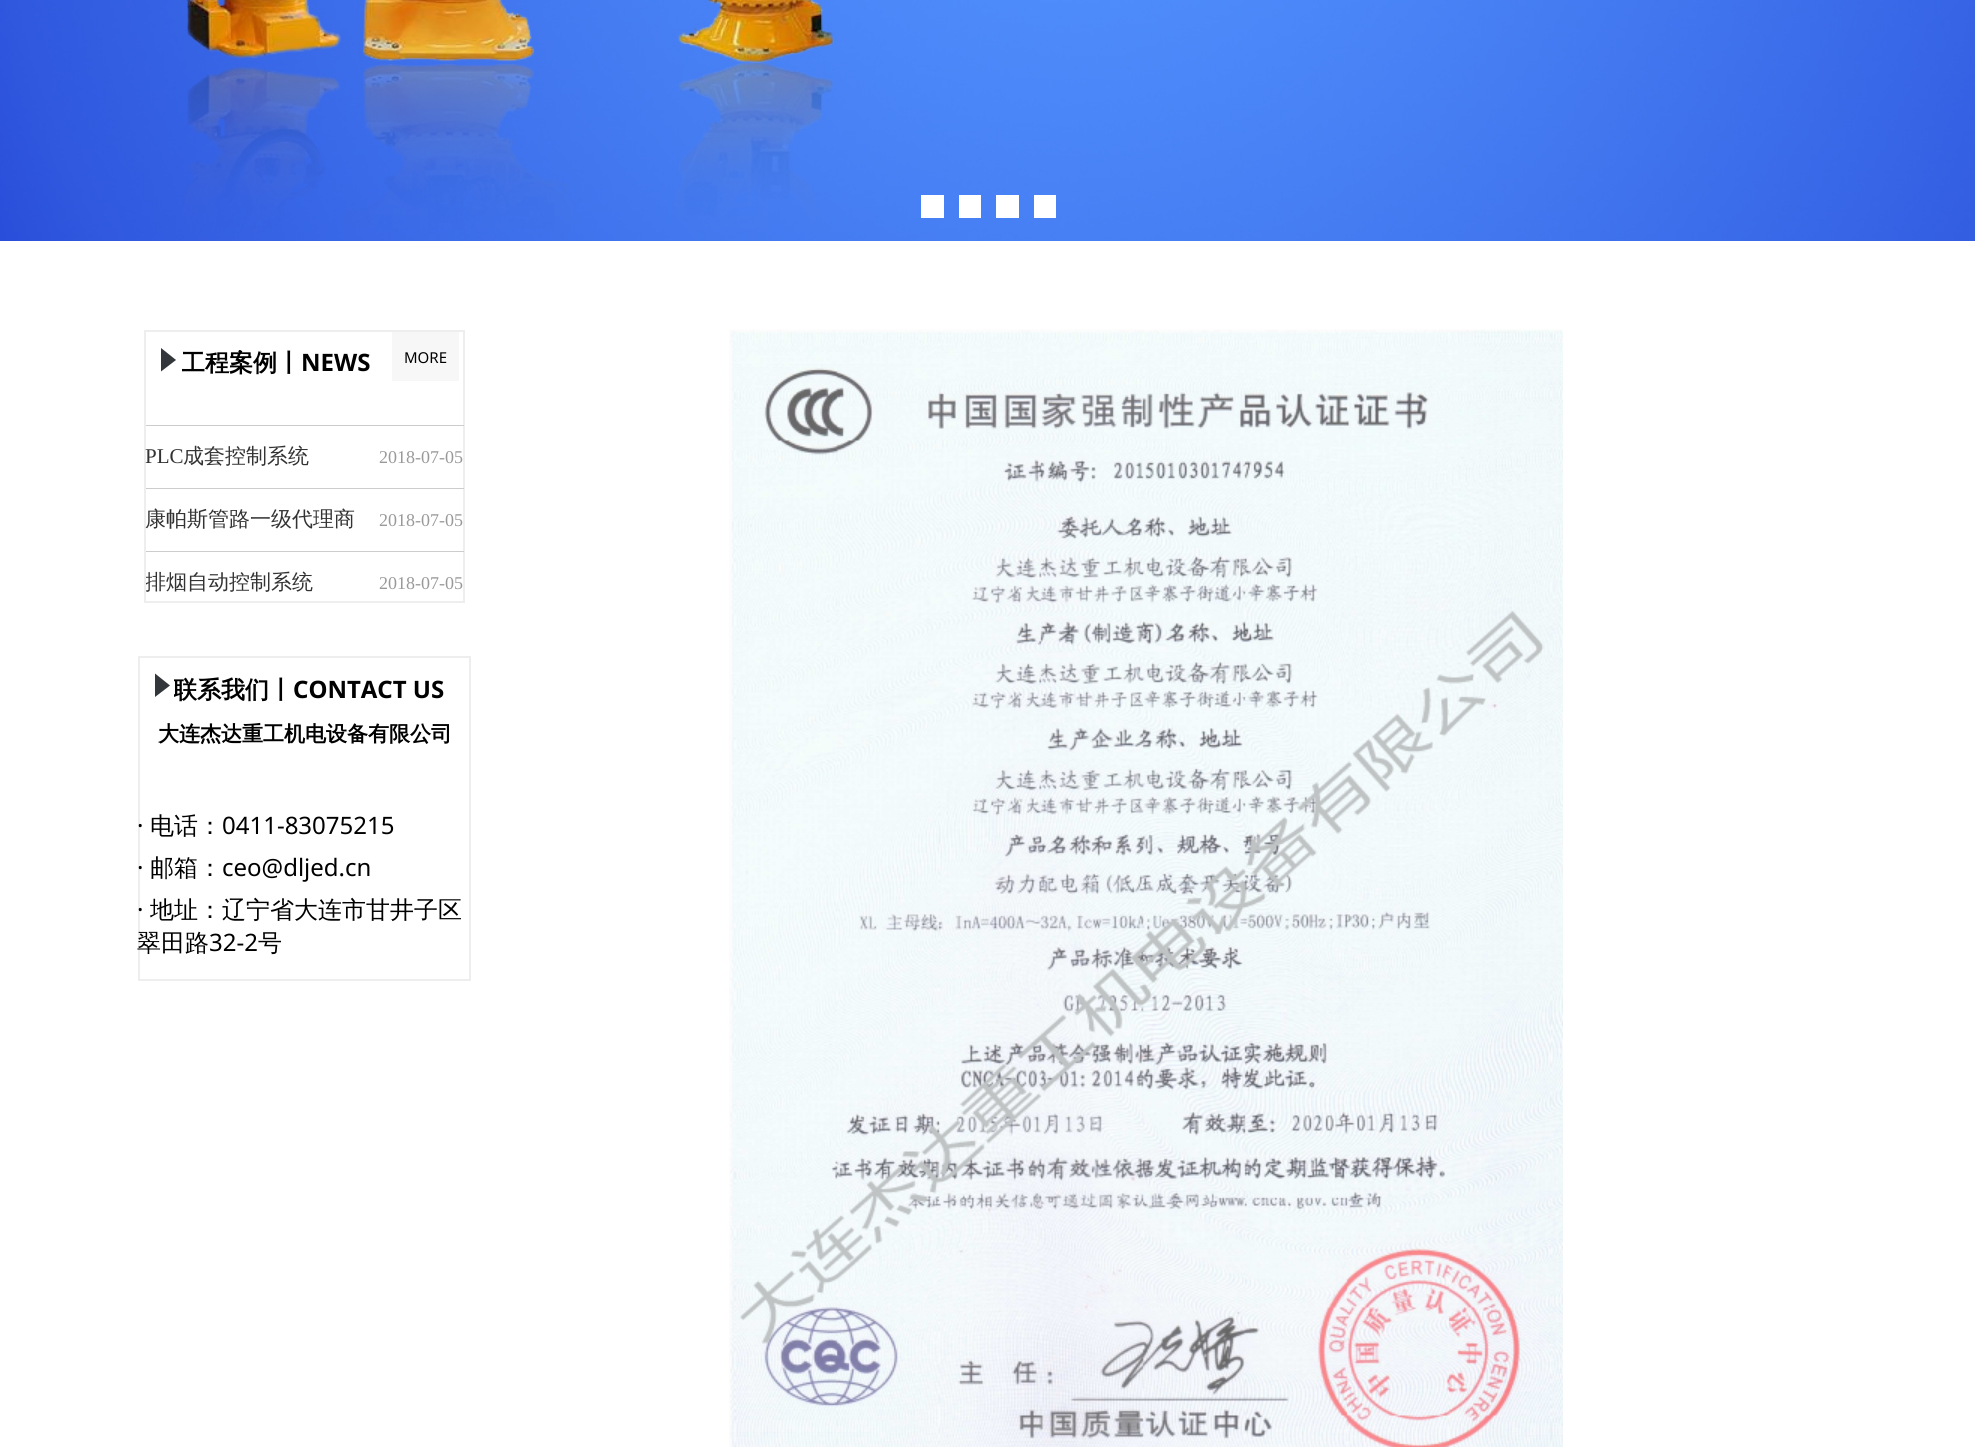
#include <cairo/cairo.h>
#include <math.h>
#include <stddef.h>


static void draw_image(cairo_t *cr, const char *path, double x, double y, double w, double h) {
  cairo_surface_t *image = cairo_image_surface_create_from_png(path);
  cairo_save(cr);
  cairo_set_source_surface(cr, image, x, y);
  cairo_rectangle(cr, x, y, w, h);
  cairo_fill(cr);
  cairo_restore(cr);
  cairo_surface_destroy(image);
}

static void draw(cairo_t *cr) {
  cairo_set_source_rgb(cr, 1, 1, 1);
  cairo_paint(cr);
  draw_image(cr, "images/1.png", 0, 0, 1975, 241);
  cairo_set_source_rgb(cr, 1, 1, 1);
  cairo_rectangle(cr, 921, 195, 23, 23);
  cairo_fill(cr);
  cairo_rectangle(cr, 959, 195, 22, 23);
  cairo_fill(cr);
  cairo_rectangle(cr, 996, 195, 23, 23);
  cairo_fill(cr);
  cairo_rectangle(cr, 1034, 195, 22, 23);
  cairo_fill(cr);
  cairo_rectangle(cr, 145, 331, 319, 271);
  cairo_set_source_rgb(cr, 238 / 255.0, 238 / 255.0, 238 / 255.0);
  cairo_stroke(cr);
  cairo_set_source_rgb(cr, 51 / 255.0, 55 / 255.0, 59 / 255.0);
  cairo_new_path(cr);
  cairo_move_to(cr, 161, 348);
  cairo_line_to(cr, 176, 360);
  cairo_line_to(cr, 161, 371.5);
  cairo_close_path(cr);
  cairo_fill(cr);
  cairo_set_source_rgb(cr, 247 / 255.0, 247 / 255.0, 247 / 255.0);
  cairo_rectangle(cr, 392, 332, 67, 49);
  cairo_fill(cr);
  cairo_set_source_rgb(cr, 204 / 255.0, 204 / 255.0, 204 / 255.0);
  cairo_rectangle(cr, 146, 425, 318, 1);
  cairo_fill(cr);
  cairo_rectangle(cr, 146, 488, 318, 1);
  cairo_fill(cr);
  cairo_rectangle(cr, 146, 551, 318, 1);
  cairo_fill(cr);
  draw_image(cr, "images/2.png", 729, 329, 834, 1118);
  cairo_rectangle(cr, 139, 657, 331, 323);
  cairo_set_source_rgb(cr, 238 / 255.0, 238 / 255.0, 238 / 255.0);
  cairo_stroke(cr);
  cairo_set_source_rgb(cr, 51 / 255.0, 55 / 255.0, 59 / 255.0);
  cairo_new_path(cr);
  cairo_move_to(cr, 155, 673.5);
  cairo_line_to(cr, 170, 685.5);
  cairo_line_to(cr, 155, 697);
  cairo_close_path(cr);
  cairo_fill(cr);
  cairo_save(cr);
  cairo_rectangle(cr, 182, 350, 222, 31);
  cairo_clip(cr);
  cairo_select_font_face(cr, "WenQuanYi Zen Hei", CAIRO_FONT_SLANT_NORMAL, CAIRO_FONT_WEIGHT_BOLD);
  cairo_set_font_size(cr, 24);
  cairo_set_source_rgb(cr, 0, 0, 0);
  cairo_move_to(cr, 181, 371);
  cairo_show_text(cr, "工程案例丨");
  cairo_restore(cr);
  cairo_select_font_face(cr, "Noto Sans", CAIRO_FONT_SLANT_NORMAL, CAIRO_FONT_WEIGHT_BOLD);
  cairo_set_font_size(cr, 24);
  cairo_set_source_rgb(cr, 0, 0, 0);
  cairo_move_to(cr, 301, 371);
  cairo_show_text(cr, "NEWS");
  cairo_select_font_face(cr, "Noto Sans", CAIRO_FONT_SLANT_NORMAL, CAIRO_FONT_WEIGHT_NORMAL);
  cairo_set_font_size(cr, 15);
  cairo_move_to(cr, 404, 363);
  cairo_show_text(cr, "MORE");
  cairo_select_font_face(cr, "Liberation Serif", CAIRO_FONT_SLANT_NORMAL, CAIRO_FONT_WEIGHT_NORMAL);
  cairo_set_font_size(cr, 21);
  cairo_set_source_rgb(cr, 51 / 255.0, 51 / 255.0, 51 / 255.0);
  cairo_move_to(cr, 145, 463);
  cairo_show_text(cr, "PLC");
  cairo_select_font_face(cr, "WenQuanYi Zen Hei Medium", CAIRO_FONT_SLANT_NORMAL, CAIRO_FONT_WEIGHT_NORMAL);
  cairo_move_to(cr, 183, 463);
  cairo_show_text(cr, "成套控制系统");
  cairo_select_font_face(cr, "Liberation Serif", CAIRO_FONT_SLANT_NORMAL, CAIRO_FONT_WEIGHT_NORMAL);
  cairo_set_font_size(cr, 18);
  cairo_set_source_rgb(cr, 153 / 255.0, 153 / 255.0, 153 / 255.0);
  cairo_move_to(cr, 379, 463);
  cairo_show_text(cr, "2018-07-05");
  cairo_select_font_face(cr, "WenQuanYi Zen Hei Medium", CAIRO_FONT_SLANT_NORMAL, CAIRO_FONT_WEIGHT_NORMAL);
  cairo_set_font_size(cr, 21);
  cairo_set_source_rgb(cr, 51 / 255.0, 51 / 255.0, 51 / 255.0);
  cairo_move_to(cr, 145, 526);
  cairo_show_text(cr, "康帕斯管路一级代理商");
  cairo_select_font_face(cr, "Liberation Serif", CAIRO_FONT_SLANT_NORMAL, CAIRO_FONT_WEIGHT_NORMAL);
  cairo_set_font_size(cr, 18);
  cairo_set_source_rgb(cr, 153 / 255.0, 153 / 255.0, 153 / 255.0);
  cairo_move_to(cr, 379, 526);
  cairo_show_text(cr, "2018-07-05");
  cairo_save(cr);
  cairo_rectangle(cr, 146, 554, 222, 46);
  cairo_clip(cr);
  cairo_select_font_face(cr, "WenQuanYi Zen Hei Medium", CAIRO_FONT_SLANT_NORMAL, CAIRO_FONT_WEIGHT_NORMAL);
  cairo_set_font_size(cr, 21);
  cairo_set_source_rgb(cr, 51 / 255.0, 51 / 255.0, 51 / 255.0);
  cairo_move_to(cr, 145, 589);
  cairo_show_text(cr, "排烟自动控制系统");
  cairo_restore(cr);
  cairo_move_to(cr, 379, 589);
  cairo_show_text(cr, "2018-07-05");
  cairo_save(cr);
  cairo_rectangle(cr, 174, 677, 300, 33);
  cairo_clip(cr);
  cairo_select_font_face(cr, "WenQuanYi Zen Hei", CAIRO_FONT_SLANT_NORMAL, CAIRO_FONT_WEIGHT_BOLD);
  cairo_set_font_size(cr, 24);
  cairo_set_source_rgb(cr, 0, 0, 0);
  cairo_move_to(cr, 173, 698);
  cairo_show_text(cr, "联系我们丨");
  cairo_restore(cr);
  cairo_select_font_face(cr, "Noto Sans", CAIRO_FONT_SLANT_NORMAL, CAIRO_FONT_WEIGHT_BOLD);
  cairo_set_font_size(cr, 24);
  cairo_set_source_rgb(cr, 0, 0, 0);
  cairo_move_to(cr, 293, 698);
  cairo_show_text(cr, "CONTACT US");
  cairo_select_font_face(cr, "WenQuanYi Zen Hei", CAIRO_FONT_SLANT_NORMAL, CAIRO_FONT_WEIGHT_BOLD);
  cairo_set_font_size(cr, 21);
  cairo_move_to(cr, 158, 741);
  cairo_show_text(cr, "大连杰达重工机电设备有限公司");
  cairo_select_font_face(cr, "Noto Sans", CAIRO_FONT_SLANT_NORMAL, CAIRO_FONT_WEIGHT_NORMAL);
  cairo_set_font_size(cr, 24);
  cairo_move_to(cr, 137, 834);
  cairo_show_text(cr, "·");
  cairo_select_font_face(cr, "WenQuanYi Zen Hei Medium", CAIRO_FONT_SLANT_NORMAL, CAIRO_FONT_WEIGHT_NORMAL);
  cairo_move_to(cr, 150, 834);
  cairo_show_text(cr, "电话：");
  cairo_select_font_face(cr, "Noto Sans", CAIRO_FONT_SLANT_NORMAL, CAIRO_FONT_WEIGHT_NORMAL);
  cairo_move_to(cr, 222, 834);
  cairo_show_text(cr, "0411-83075215");
  cairo_move_to(cr, 137, 876);
  cairo_show_text(cr, "·");
  cairo_select_font_face(cr, "WenQuanYi Zen Hei Medium", CAIRO_FONT_SLANT_NORMAL, CAIRO_FONT_WEIGHT_NORMAL);
  cairo_move_to(cr, 150, 876);
  cairo_show_text(cr, "邮箱：");
  cairo_select_font_face(cr, "Noto Sans", CAIRO_FONT_SLANT_NORMAL, CAIRO_FONT_WEIGHT_NORMAL);
  cairo_move_to(cr, 222, 876);
  cairo_show_text(cr, "ceo@dljed.cn");
  cairo_move_to(cr, 137, 918);
  cairo_show_text(cr, "·");
  cairo_select_font_face(cr, "WenQuanYi Zen Hei Medium", CAIRO_FONT_SLANT_NORMAL, CAIRO_FONT_WEIGHT_NORMAL);
  cairo_move_to(cr, 150, 918);
  cairo_show_text(cr, "地址：辽宁省大连市甘井子区");
  cairo_move_to(cr, 137, 951);
  cairo_show_text(cr, "翠田路");
  cairo_select_font_face(cr, "Noto Sans", CAIRO_FONT_SLANT_NORMAL, CAIRO_FONT_WEIGHT_NORMAL);
  cairo_move_to(cr, 209, 951);
  cairo_show_text(cr, "32-2");
  cairo_select_font_face(cr, "WenQuanYi Zen Hei Medium", CAIRO_FONT_SLANT_NORMAL, CAIRO_FONT_WEIGHT_NORMAL);
  cairo_move_to(cr, 258, 951);
  cairo_show_text(cr, "号");
}

int main(void) {
  cairo_surface_t *surface = cairo_image_surface_create(CAIRO_FORMAT_RGB24, 1975, 1447);
  cairo_t *cr = cairo_create(surface);
  cairo_font_options_t *options = cairo_font_options_create();
  cairo_font_options_set_hint_metrics(options, CAIRO_HINT_METRICS_OFF);
  cairo_font_options_set_hint_style(options, CAIRO_HINT_STYLE_NONE);
  cairo_set_font_options(cr, options);
  cairo_set_miter_limit(cr, 4);
  draw(cr);
  cairo_surface_write_to_png(surface, "out.png");
  cairo_font_options_destroy(options);
  cairo_destroy(cr);
  cairo_surface_destroy(surface);
  return 0;
}
